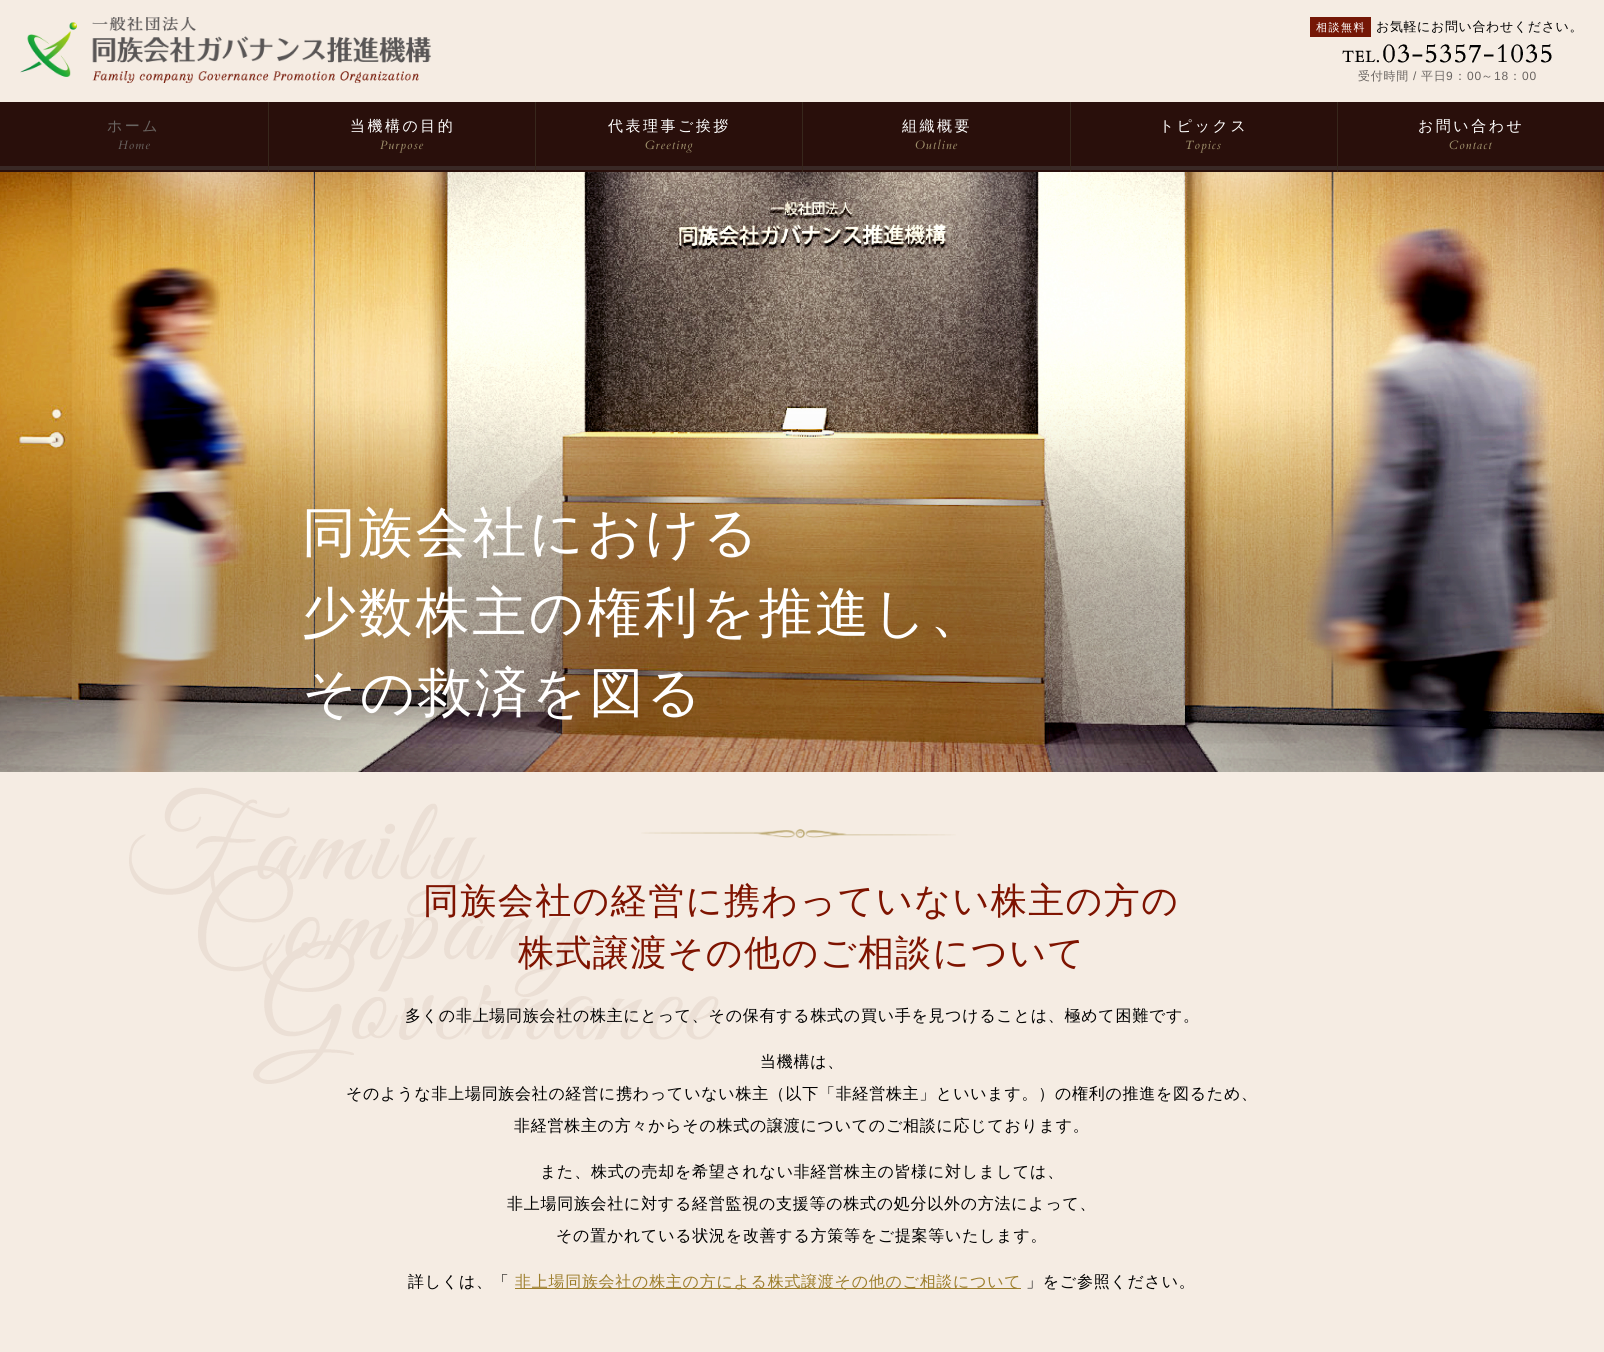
#include <cairo/cairo.h>
#include <math.h>
#include <stddef.h>


static void draw_spaced(cairo_t *cr, double x, double y, const char *s, double letter, double word) {
  cairo_move_to(cr, x, y);
  while (*s) {
    char ch[5] = {0};
    int n = 0;
    do ch[n++] = *s++; while ((*s & 0xC0) == 0x80);
    cairo_show_text(cr, ch);
    cairo_rel_move_to(cr, letter + word * (*ch == ' '), 0);
  }
}

static void draw_image(cairo_t *cr, const char *path, double x, double y, double w, double h) {
  cairo_surface_t *image = cairo_image_surface_create_from_png(path);
  cairo_save(cr);
  cairo_set_source_surface(cr, image, x, y);
  cairo_rectangle(cr, x, y, w, h);
  cairo_fill(cr);
  cairo_restore(cr);
  cairo_surface_destroy(image);
}

static void draw(cairo_t *cr) {
  cairo_set_source_rgb(cr, 245 / 255.0, 236 / 255.0, 227 / 255.0);
  cairo_paint(cr);
  draw_image(cr, "images/1.png", 20, 17, 411, 66);
  cairo_set_source_rgb(cr, 117 / 255.0, 23 / 255.0, 6 / 255.0);
  cairo_rectangle(cr, 1310, 17, 61, 20);
  cairo_fill(cr);
  draw_image(cr, "images/2.png", 1342, 44, 210, 19);
  cairo_set_source_rgb(cr, 41 / 255.0, 15 / 255.0, 11 / 255.0);
  cairo_rectangle(cr, 0, 102, 268, 70);
  cairo_fill(cr);
  cairo_set_source_rgb(cr, 57 / 255.0, 40 / 255.0, 37 / 255.0);
  cairo_rectangle(cr, 0, 166, 268, 4);
  cairo_fill(cr);
  cairo_set_source_rgb(cr, 55 / 255.0, 39 / 255.0, 28 / 255.0);
  cairo_rectangle(cr, 268, 102, 1, 70);
  cairo_fill(cr);
  cairo_set_source_rgb(cr, 41 / 255.0, 15 / 255.0, 11 / 255.0);
  cairo_rectangle(cr, 269, 102, 266, 70);
  cairo_fill(cr);
  cairo_set_source_rgb(cr, 57 / 255.0, 40 / 255.0, 37 / 255.0);
  cairo_rectangle(cr, 269, 166, 266, 4);
  cairo_fill(cr);
  cairo_set_source_rgb(cr, 55 / 255.0, 39 / 255.0, 28 / 255.0);
  cairo_rectangle(cr, 535, 102, 1, 70);
  cairo_fill(cr);
  cairo_set_source_rgb(cr, 41 / 255.0, 15 / 255.0, 11 / 255.0);
  cairo_rectangle(cr, 536, 102, 266, 70);
  cairo_fill(cr);
  cairo_set_source_rgb(cr, 57 / 255.0, 40 / 255.0, 37 / 255.0);
  cairo_rectangle(cr, 536, 166, 266, 4);
  cairo_fill(cr);
  cairo_set_source_rgb(cr, 55 / 255.0, 39 / 255.0, 28 / 255.0);
  cairo_rectangle(cr, 802, 102, 1, 70);
  cairo_fill(cr);
  cairo_set_source_rgb(cr, 41 / 255.0, 15 / 255.0, 11 / 255.0);
  cairo_rectangle(cr, 803, 102, 267, 70);
  cairo_fill(cr);
  cairo_set_source_rgb(cr, 57 / 255.0, 40 / 255.0, 37 / 255.0);
  cairo_rectangle(cr, 803, 166, 267, 4);
  cairo_fill(cr);
  cairo_set_source_rgb(cr, 55 / 255.0, 39 / 255.0, 28 / 255.0);
  cairo_rectangle(cr, 1070, 102, 1, 70);
  cairo_fill(cr);
  cairo_set_source_rgb(cr, 41 / 255.0, 15 / 255.0, 11 / 255.0);
  cairo_rectangle(cr, 1071, 102, 266, 70);
  cairo_fill(cr);
  cairo_set_source_rgb(cr, 57 / 255.0, 40 / 255.0, 37 / 255.0);
  cairo_rectangle(cr, 1071, 166, 266, 4);
  cairo_fill(cr);
  cairo_set_source_rgb(cr, 55 / 255.0, 39 / 255.0, 28 / 255.0);
  cairo_rectangle(cr, 1337, 102, 1, 70);
  cairo_fill(cr);
  cairo_set_source_rgb(cr, 41 / 255.0, 15 / 255.0, 11 / 255.0);
  cairo_rectangle(cr, 1338, 102, 266, 70);
  cairo_fill(cr);
  cairo_set_source_rgb(cr, 57 / 255.0, 40 / 255.0, 37 / 255.0);
  cairo_rectangle(cr, 1338, 166, 266, 4);
  cairo_fill(cr);
  draw_image(cr, "images/3.png", 0, 172, 1604, 600);
  draw_image(cr, "images/4.png", 129, 787, 827, 297);
  cairo_set_source_rgb(cr, 157 / 255.0, 126 / 255.0, 44 / 255.0);
  cairo_rectangle(cr, 515, 1288, 506, 1);
  cairo_fill(cr);
  cairo_select_font_face(cr, "WenQuanYi Zen Hei Medium", CAIRO_FONT_SLANT_NORMAL, CAIRO_FONT_WEIGHT_NORMAL);
  cairo_set_font_size(cr, 11);
  cairo_set_source_rgb(cr, 1, 1, 1);
  draw_spaced(cr, 1316, 31, "相談無料", 1.5, 0);
  cairo_set_font_size(cr, 13);
  cairo_set_source_rgb(cr, 0, 0, 0);
  draw_spaced(cr, 1376, 31, "お気軽にお問い合わせください。", 0.6, 0);
  cairo_set_font_size(cr, 12);
  cairo_set_source_rgb(cr, 105 / 255.0, 100 / 255.0, 97 / 255.0);
  draw_spaced(cr, 1358, 80, "受付時間", 0.72, 0);
  cairo_select_font_face(cr, "Liberation Sans", CAIRO_FONT_SLANT_NORMAL, CAIRO_FONT_WEIGHT_NORMAL);
  draw_spaced(cr, 1413, 80, "/", 0.72, 0);
  cairo_select_font_face(cr, "WenQuanYi Zen Hei Medium", CAIRO_FONT_SLANT_NORMAL, CAIRO_FONT_WEIGHT_NORMAL);
  draw_spaced(cr, 1421, 80, "平日", 0.72, 0);
  cairo_select_font_face(cr, "Liberation Sans", CAIRO_FONT_SLANT_NORMAL, CAIRO_FONT_WEIGHT_NORMAL);
  draw_spaced(cr, 1446, 80, "9", 0.72, 0);
  cairo_select_font_face(cr, "WenQuanYi Zen Hei Medium", CAIRO_FONT_SLANT_NORMAL, CAIRO_FONT_WEIGHT_NORMAL);
  draw_spaced(cr, 1454, 80, "：", 0.72, 0);
  cairo_select_font_face(cr, "Liberation Sans", CAIRO_FONT_SLANT_NORMAL, CAIRO_FONT_WEIGHT_NORMAL);
  draw_spaced(cr, 1467, 80, "00", 0.72, 0);
  cairo_select_font_face(cr, "WenQuanYi Zen Hei Medium", CAIRO_FONT_SLANT_NORMAL, CAIRO_FONT_WEIGHT_NORMAL);
  draw_spaced(cr, 1481, 80, "～", 0.72, 0);
  cairo_select_font_face(cr, "Liberation Sans", CAIRO_FONT_SLANT_NORMAL, CAIRO_FONT_WEIGHT_NORMAL);
  draw_spaced(cr, 1494, 80, "18", 0.72, 0);
  cairo_select_font_face(cr, "WenQuanYi Zen Hei Medium", CAIRO_FONT_SLANT_NORMAL, CAIRO_FONT_WEIGHT_NORMAL);
  draw_spaced(cr, 1509, 80, "：", 0.72, 0);
  cairo_select_font_face(cr, "Liberation Sans", CAIRO_FONT_SLANT_NORMAL, CAIRO_FONT_WEIGHT_NORMAL);
  draw_spaced(cr, 1522, 80, "00", 0.72, 0);
  cairo_select_font_face(cr, "WenQuanYi Zen Hei Medium", CAIRO_FONT_SLANT_NORMAL, CAIRO_FONT_WEIGHT_NORMAL);
  cairo_set_font_size(cr, 15);
  draw_spaced(cr, 107, 131, "ホーム", 2.5, 0);
  cairo_select_font_face(cr, "Cardo", CAIRO_FONT_SLANT_ITALIC, CAIRO_FONT_WEIGHT_NORMAL);
  cairo_set_font_size(cr, 12);
  draw_spaced(cr, 118, 149, "Home", 1, 0);
  cairo_select_font_face(cr, "WenQuanYi Zen Hei Medium", CAIRO_FONT_SLANT_NORMAL, CAIRO_FONT_WEIGHT_NORMAL);
  cairo_set_font_size(cr, 15);
  cairo_set_source_rgb(cr, 1, 1, 1);
  draw_spaced(cr, 350, 131, "当機構の目的", 2.5, 0);
  cairo_select_font_face(cr, "Cardo", CAIRO_FONT_SLANT_ITALIC, CAIRO_FONT_WEIGHT_NORMAL);
  cairo_set_font_size(cr, 12);
  cairo_set_source_rgb(cr, 162 / 255.0, 148 / 255.0, 110 / 255.0);
  draw_spaced(cr, 380, 149, "Purpose", 1, 0);
  cairo_select_font_face(cr, "WenQuanYi Zen Hei Medium", CAIRO_FONT_SLANT_NORMAL, CAIRO_FONT_WEIGHT_NORMAL);
  cairo_set_font_size(cr, 15);
  cairo_set_source_rgb(cr, 1, 1, 1);
  draw_spaced(cr, 608, 131, "代表理事ご挨拶", 2.5, 0);
  cairo_select_font_face(cr, "Cardo", CAIRO_FONT_SLANT_ITALIC, CAIRO_FONT_WEIGHT_NORMAL);
  cairo_set_font_size(cr, 12);
  cairo_set_source_rgb(cr, 162 / 255.0, 148 / 255.0, 110 / 255.0);
  draw_spaced(cr, 645, 149, "Greeting", 1, 0);
  cairo_select_font_face(cr, "WenQuanYi Zen Hei Medium", CAIRO_FONT_SLANT_NORMAL, CAIRO_FONT_WEIGHT_NORMAL);
  cairo_set_font_size(cr, 15);
  cairo_set_source_rgb(cr, 1, 1, 1);
  draw_spaced(cr, 902, 131, "組織概要", 2.5, 0);
  cairo_select_font_face(cr, "Cardo", CAIRO_FONT_SLANT_ITALIC, CAIRO_FONT_WEIGHT_NORMAL);
  cairo_set_font_size(cr, 12);
  cairo_set_source_rgb(cr, 162 / 255.0, 148 / 255.0, 110 / 255.0);
  draw_spaced(cr, 915, 149, "Outline", 1, 0);
  cairo_select_font_face(cr, "WenQuanYi Zen Hei Medium", CAIRO_FONT_SLANT_NORMAL, CAIRO_FONT_WEIGHT_NORMAL);
  cairo_set_font_size(cr, 15);
  cairo_set_source_rgb(cr, 1, 1, 1);
  draw_spaced(cr, 1159, 131, "トピックス", 2.5, 0);
  cairo_select_font_face(cr, "Cardo", CAIRO_FONT_SLANT_ITALIC, CAIRO_FONT_WEIGHT_NORMAL);
  cairo_set_font_size(cr, 12);
  cairo_set_source_rgb(cr, 162 / 255.0, 148 / 255.0, 110 / 255.0);
  draw_spaced(cr, 1185, 149, "Topics", 1, 0);
  cairo_select_font_face(cr, "WenQuanYi Zen Hei Medium", CAIRO_FONT_SLANT_NORMAL, CAIRO_FONT_WEIGHT_NORMAL);
  cairo_set_font_size(cr, 15);
  cairo_set_source_rgb(cr, 1, 1, 1);
  draw_spaced(cr, 1418, 131, "お問い合わせ", 2.5, 0);
  cairo_select_font_face(cr, "Cardo", CAIRO_FONT_SLANT_ITALIC, CAIRO_FONT_WEIGHT_NORMAL);
  cairo_set_font_size(cr, 12);
  cairo_set_source_rgb(cr, 162 / 255.0, 148 / 255.0, 110 / 255.0);
  draw_spaced(cr, 1449, 149, "Contact", 1, 0);
  cairo_select_font_face(cr, "WenQuanYi Zen Hei Medium", CAIRO_FONT_SLANT_NORMAL, CAIRO_FONT_WEIGHT_NORMAL);
  cairo_set_font_size(cr, 54);
  cairo_set_source_rgb(cr, 1, 1, 1);
  draw_spaced(cr, 302, 551, "同族会社における", 2.75, 0);
  draw_spaced(cr, 302, 631, "少数株主の権利を推進し、", 2.75, 0);
  draw_spaced(cr, 302, 711, "その救済を図る", 2.75, 0);
  cairo_set_font_size(cr, 36);
  cairo_set_source_rgb(cr, 126 / 255.0, 19 / 255.0, 0);
  draw_spaced(cr, 423, 913, "同族会社の経営に携わっていない株主の方の", 1.4, 0);
  draw_spaced(cr, 518, 965, "株式譲渡その他のご相談について", 1.4, 0);
  cairo_set_font_size(cr, 16);
  cairo_set_source_rgb(cr, 0, 0, 0);
  draw_spaced(cr, 405, 1021, "多くの非上場同族会社の株主にとって、その保有する株式の買い手を見つけることは、極めて困難です。", 0.72, 0);
  draw_spaced(cr, 760, 1067, "当機構は、", 0.72, 0);
  draw_spaced(cr, 346, 1099, "そのような非上場同族会社の経営に携わっていない株主（以下「非経営株主」といいます。）の権利の推進を図るため、", 0.72, 0);
  draw_spaced(cr, 514, 1131, "非経営株主の方々からその株式の譲渡についてのご相談に応じております。", 0.72, 0);
  draw_spaced(cr, 540, 1177, "また、株式の売却を希望されない非経営株主の皆様に対しましては、", 0.72, 0);
  draw_spaced(cr, 507, 1209, "非上場同族会社に対する経営監視の支援等の株式の処分以外の方法によって、", 0.72, 0);
  draw_spaced(cr, 556, 1241, "その置かれている状況を改善する方策等をご提案等いたします。", 0.72, 0);
  draw_spaced(cr, 408, 1287, "詳しくは、「", 0.72, 0);
  cairo_set_source_rgb(cr, 157 / 255.0, 126 / 255.0, 44 / 255.0);
  draw_spaced(cr, 515, 1287, "非上場同族会社の株主の方による株式譲渡その他のご相談について", 0.72, 0);
  cairo_set_source_rgb(cr, 0, 0, 0);
  draw_spaced(cr, 1026, 1287, "」をご参照ください。", 0.72, 0);
}

int main(void) {
  cairo_surface_t *surface = cairo_image_surface_create(CAIRO_FORMAT_RGB24, 1604, 1352);
  cairo_t *cr = cairo_create(surface);
  cairo_font_options_t *options = cairo_font_options_create();
  cairo_font_options_set_hint_metrics(options, CAIRO_HINT_METRICS_OFF);
  cairo_font_options_set_hint_style(options, CAIRO_HINT_STYLE_NONE);
  cairo_set_font_options(cr, options);
  cairo_set_miter_limit(cr, 4);
  draw(cr);
  cairo_surface_write_to_png(surface, "out.png");
  cairo_font_options_destroy(options);
  cairo_destroy(cr);
  cairo_surface_destroy(surface);
  return 0;
}
